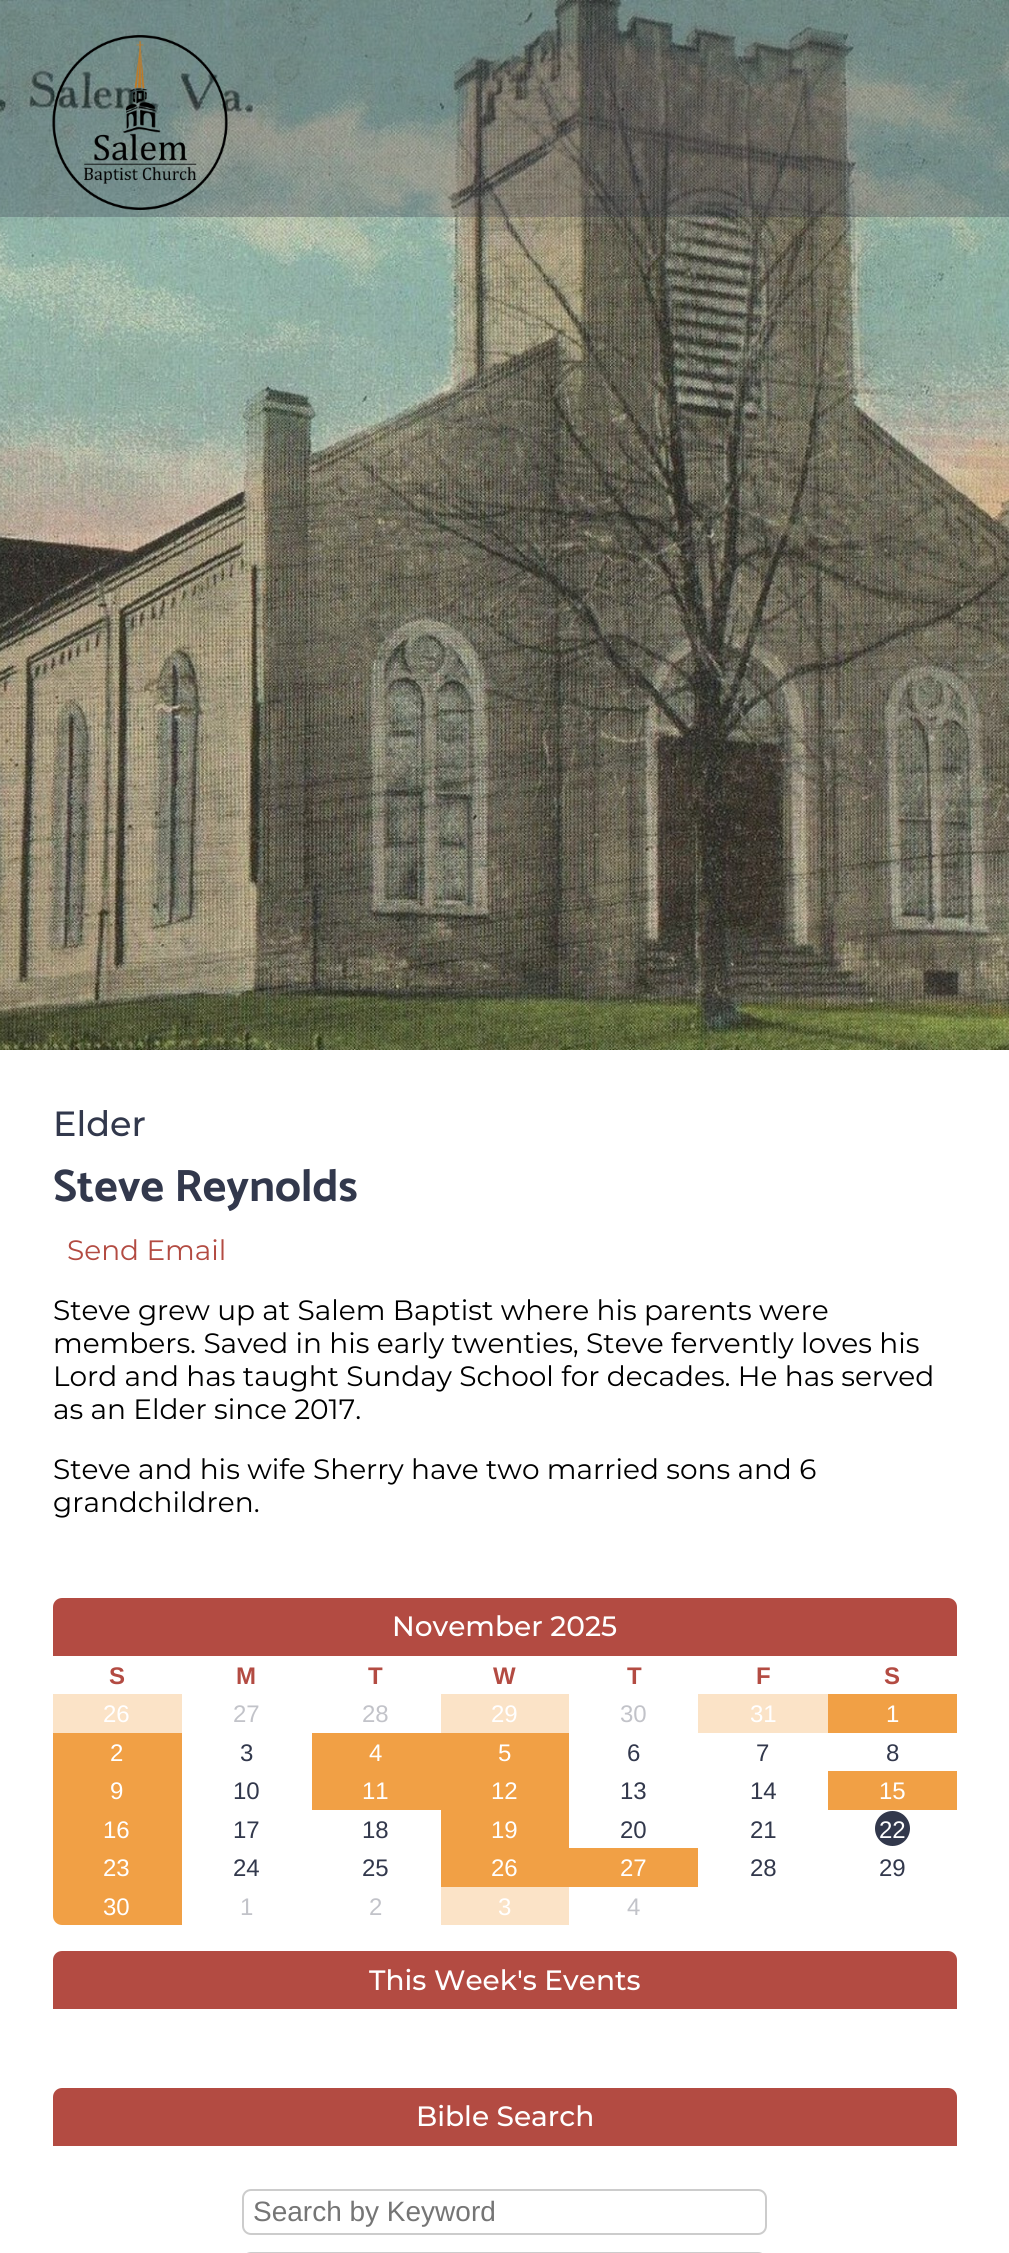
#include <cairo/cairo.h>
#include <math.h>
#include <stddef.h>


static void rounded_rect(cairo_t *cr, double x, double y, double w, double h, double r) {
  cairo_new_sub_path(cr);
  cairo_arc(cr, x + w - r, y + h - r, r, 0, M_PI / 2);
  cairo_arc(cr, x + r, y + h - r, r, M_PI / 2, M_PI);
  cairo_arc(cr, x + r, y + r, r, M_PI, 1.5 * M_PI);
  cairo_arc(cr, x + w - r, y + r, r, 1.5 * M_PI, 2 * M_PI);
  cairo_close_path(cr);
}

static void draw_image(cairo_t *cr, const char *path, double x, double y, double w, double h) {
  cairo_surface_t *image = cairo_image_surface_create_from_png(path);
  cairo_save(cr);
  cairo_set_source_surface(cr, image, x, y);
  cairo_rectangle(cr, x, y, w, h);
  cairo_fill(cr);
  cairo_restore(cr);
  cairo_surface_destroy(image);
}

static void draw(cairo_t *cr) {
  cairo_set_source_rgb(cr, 1, 1, 1);
  cairo_paint(cr);
  draw_image(cr, "images/1.png", 0, 0, 1009, 1050);
  cairo_set_source_rgba(cr, 50 / 255.0, 56 / 255.0, 76 / 255.0, 0.3);
  cairo_rectangle(cr, 0, 0, 1009, 217);
  cairo_fill(cr);
  draw_image(cr, "images/2.png", 52, 35, 176, 175);
  cairo_set_source_rgb(cr, 179 / 255.0, 75 / 255.0, 66 / 255.0);
  cairo_new_path(cr);
  cairo_move_to(cr, 62, 1598);
  cairo_line_to(cr, 948, 1598);
  cairo_curve_to(cr, 953, 1598, 957, 1602, 957, 1607);
  cairo_line_to(cr, 957, 1656);
  cairo_line_to(cr, 53, 1656);
  cairo_line_to(cr, 53, 1607);
  cairo_curve_to(cr, 53, 1602, 57, 1598, 62, 1598);
  cairo_close_path(cr);
  cairo_fill(cr);
  cairo_set_source_rgb(cr, 251 / 255.0, 227 / 255.0, 199 / 255.0);
  cairo_rectangle(cr, 53, 1694, 129, 39);
  cairo_fill(cr);
  cairo_rectangle(cr, 441, 1694, 128, 39);
  cairo_fill(cr);
  cairo_rectangle(cr, 698, 1694, 130, 39);
  cairo_fill(cr);
  cairo_set_source_rgb(cr, 241 / 255.0, 160 / 255.0, 69 / 255.0);
  cairo_rectangle(cr, 828, 1694, 129, 39);
  cairo_fill(cr);
  cairo_rectangle(cr, 53, 1733, 129, 154);
  cairo_fill(cr);
  cairo_rectangle(cr, 312, 1733, 257, 38);
  cairo_fill(cr);
  cairo_rectangle(cr, 312, 1771, 257, 39);
  cairo_fill(cr);
  cairo_rectangle(cr, 828, 1771, 129, 39);
  cairo_fill(cr);
  cairo_rectangle(cr, 441, 1810, 128, 77);
  cairo_fill(cr);
  cairo_set_source_rgb(cr, 50 / 255.0, 56 / 255.0, 76 / 255.0);
  cairo_arc(cr, 892.5, 1828.5, 17.5, 0, 2 * M_PI);
  cairo_fill(cr);
  cairo_set_source_rgb(cr, 241 / 255.0, 160 / 255.0, 69 / 255.0);
  cairo_rectangle(cr, 569, 1848, 129, 39);
  cairo_fill(cr);
  cairo_new_path(cr);
  cairo_move_to(cr, 53, 1887);
  cairo_line_to(cr, 182, 1887);
  cairo_line_to(cr, 182, 1925);
  cairo_line_to(cr, 62, 1925);
  cairo_curve_to(cr, 57, 1925, 53, 1921, 53, 1916);
  cairo_close_path(cr);
  cairo_fill(cr);
  cairo_set_source_rgb(cr, 251 / 255.0, 227 / 255.0, 199 / 255.0);
  cairo_rectangle(cr, 441, 1887, 128, 38);
  cairo_fill(cr);
  cairo_set_source_rgb(cr, 179 / 255.0, 75 / 255.0, 66 / 255.0);
  cairo_new_path(cr);
  cairo_move_to(cr, 62, 1951);
  cairo_line_to(cr, 948, 1951);
  cairo_curve_to(cr, 953, 1951, 957, 1955, 957, 1960);
  cairo_line_to(cr, 957, 2009);
  cairo_line_to(cr, 53, 2009);
  cairo_line_to(cr, 53, 1960);
  cairo_curve_to(cr, 53, 1955, 57, 1951, 62, 1951);
  cairo_close_path(cr);
  cairo_fill(cr);
  cairo_new_path(cr);
  cairo_move_to(cr, 62, 2088);
  cairo_line_to(cr, 948, 2088);
  cairo_curve_to(cr, 953, 2088, 957, 2092, 957, 2097);
  cairo_line_to(cr, 957, 2146);
  cairo_line_to(cr, 53, 2146);
  cairo_line_to(cr, 53, 2097);
  cairo_curve_to(cr, 53, 2092, 57, 2088, 62, 2088);
  cairo_close_path(cr);
  cairo_fill(cr);
  rounded_rect(cr, 243, 2190, 523, 44, 8);
  cairo_set_source_rgb(cr, 204 / 255.0, 204 / 255.0, 204 / 255.0);
  cairo_stroke(cr);
  rounded_rect(cr, 243, 2253, 523, 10, 8);
  cairo_stroke(cr);
  cairo_select_font_face(cr, "Montserrat Medium", CAIRO_FONT_SLANT_NORMAL, CAIRO_FONT_WEIGHT_NORMAL);
  cairo_set_font_size(cr, 35);
  cairo_set_source_rgb(cr, 50 / 255.0, 56 / 255.0, 76 / 255.0);
  cairo_move_to(cr, 53, 1136);
  cairo_show_text(cr, "Elder");
  cairo_select_font_face(cr, "Catamaran Thin", CAIRO_FONT_SLANT_NORMAL, CAIRO_FONT_WEIGHT_NORMAL);
  cairo_set_font_size(cr, 45.5);
  cairo_move_to(cr, 53, 1201);
  cairo_show_text(cr, "Steve Reynolds");
  cairo_select_font_face(cr, "Montserrat", CAIRO_FONT_SLANT_NORMAL, CAIRO_FONT_WEIGHT_NORMAL);
  cairo_set_font_size(cr, 28);
  cairo_set_source_rgb(cr, 179 / 255.0, 75 / 255.0, 66 / 255.0);
  cairo_move_to(cr, 67, 1260);
  cairo_show_text(cr, "Send Email");
  cairo_set_source_rgb(cr, 0, 0, 0);
  cairo_move_to(cr, 53, 1320);
  cairo_show_text(cr, "Steve grew up at Salem Baptist where his parents were");
  cairo_move_to(cr, 53, 1353);
  cairo_show_text(cr, "members. Saved in his early twenties, Steve fervently loves his");
  cairo_move_to(cr, 53, 1386);
  cairo_show_text(cr, "Lord and has taught Sunday School for decades. He has served");
  cairo_move_to(cr, 53, 1419);
  cairo_show_text(cr, "as an Elder since 2017.");
  cairo_move_to(cr, 53, 1479);
  cairo_show_text(cr, "Steve and his wife Sherry have two married sons and 6");
  cairo_move_to(cr, 53, 1512);
  cairo_show_text(cr, "grandchildren.");
  cairo_select_font_face(cr, "Montserrat Medium", CAIRO_FONT_SLANT_NORMAL, CAIRO_FONT_WEIGHT_NORMAL);
  cairo_set_source_rgb(cr, 1, 1, 1);
  cairo_move_to(cr, 392, 1636);
  cairo_show_text(cr, "November 2025");
  cairo_select_font_face(cr, "Liberation Sans", CAIRO_FONT_SLANT_NORMAL, CAIRO_FONT_WEIGHT_BOLD);
  cairo_set_font_size(cr, 24);
  cairo_set_source_rgb(cr, 179 / 255.0, 75 / 255.0, 66 / 255.0);
  cairo_move_to(cr, 109, 1684);
  cairo_show_text(cr, "S");
  cairo_move_to(cr, 236, 1684);
  cairo_show_text(cr, "M");
  cairo_move_to(cr, 368, 1684);
  cairo_show_text(cr, "T");
  cairo_move_to(cr, 493, 1684);
  cairo_show_text(cr, "W");
  cairo_move_to(cr, 627, 1684);
  cairo_show_text(cr, "T");
  cairo_move_to(cr, 756, 1684);
  cairo_show_text(cr, "F");
  cairo_move_to(cr, 884, 1684);
  cairo_show_text(cr, "S");
  cairo_select_font_face(cr, "Liberation Sans", CAIRO_FONT_SLANT_NORMAL, CAIRO_FONT_WEIGHT_NORMAL);
  cairo_set_source_rgb(cr, 1, 1, 1);
  cairo_move_to(cr, 103, 1722);
  cairo_show_text(cr, "26");
  cairo_set_source_rgb(cr, 194 / 255.0, 195 / 255.0, 201 / 255.0);
  cairo_move_to(cr, 233, 1722);
  cairo_show_text(cr, "27");
  cairo_move_to(cr, 362, 1722);
  cairo_show_text(cr, "28");
  cairo_set_source_rgb(cr, 1, 1, 1);
  cairo_move_to(cr, 491, 1722);
  cairo_show_text(cr, "29");
  cairo_set_source_rgb(cr, 194 / 255.0, 195 / 255.0, 201 / 255.0);
  cairo_move_to(cr, 620, 1722);
  cairo_show_text(cr, "30");
  cairo_set_source_rgb(cr, 1, 1, 1);
  cairo_move_to(cr, 750, 1722);
  cairo_show_text(cr, "31");
  cairo_move_to(cr, 886, 1722);
  cairo_show_text(cr, "1");
  cairo_move_to(cr, 110, 1761);
  cairo_show_text(cr, "2");
  cairo_set_source_rgb(cr, 50 / 255.0, 56 / 255.0, 76 / 255.0);
  cairo_move_to(cr, 240, 1761);
  cairo_show_text(cr, "3");
  cairo_set_source_rgb(cr, 1, 1, 1);
  cairo_move_to(cr, 369, 1761);
  cairo_show_text(cr, "4");
  cairo_move_to(cr, 498, 1761);
  cairo_show_text(cr, "5");
  cairo_set_source_rgb(cr, 50 / 255.0, 56 / 255.0, 76 / 255.0);
  cairo_move_to(cr, 627, 1761);
  cairo_show_text(cr, "6");
  cairo_move_to(cr, 756, 1761);
  cairo_show_text(cr, "7");
  cairo_move_to(cr, 886, 1761);
  cairo_show_text(cr, "8");
  cairo_set_source_rgb(cr, 1, 1, 1);
  cairo_move_to(cr, 110, 1799);
  cairo_show_text(cr, "9");
  cairo_set_source_rgb(cr, 50 / 255.0, 56 / 255.0, 76 / 255.0);
  cairo_move_to(cr, 233, 1799);
  cairo_show_text(cr, "10");
  cairo_set_source_rgb(cr, 1, 1, 1);
  cairo_move_to(cr, 362, 1799);
  cairo_show_text(cr, "11");
  cairo_move_to(cr, 491, 1799);
  cairo_show_text(cr, "12");
  cairo_set_source_rgb(cr, 50 / 255.0, 56 / 255.0, 76 / 255.0);
  cairo_move_to(cr, 620, 1799);
  cairo_show_text(cr, "13");
  cairo_move_to(cr, 750, 1799);
  cairo_show_text(cr, "14");
  cairo_set_source_rgb(cr, 1, 1, 1);
  cairo_move_to(cr, 879, 1799);
  cairo_show_text(cr, "15");
  cairo_move_to(cr, 103, 1838);
  cairo_show_text(cr, "16");
  cairo_set_source_rgb(cr, 50 / 255.0, 56 / 255.0, 76 / 255.0);
  cairo_move_to(cr, 233, 1838);
  cairo_show_text(cr, "17");
  cairo_move_to(cr, 362, 1838);
  cairo_show_text(cr, "18");
  cairo_set_source_rgb(cr, 1, 1, 1);
  cairo_move_to(cr, 491, 1838);
  cairo_show_text(cr, "19");
  cairo_set_source_rgb(cr, 50 / 255.0, 56 / 255.0, 76 / 255.0);
  cairo_move_to(cr, 620, 1838);
  cairo_show_text(cr, "20");
  cairo_move_to(cr, 750, 1838);
  cairo_show_text(cr, "21");
  cairo_set_source_rgb(cr, 1, 1, 1);
  cairo_move_to(cr, 879, 1838);
  cairo_show_text(cr, "22");
  cairo_move_to(cr, 103, 1876);
  cairo_show_text(cr, "23");
  cairo_set_source_rgb(cr, 50 / 255.0, 56 / 255.0, 76 / 255.0);
  cairo_move_to(cr, 233, 1876);
  cairo_show_text(cr, "24");
  cairo_move_to(cr, 362, 1876);
  cairo_show_text(cr, "25");
  cairo_set_source_rgb(cr, 1, 1, 1);
  cairo_move_to(cr, 491, 1876);
  cairo_show_text(cr, "26");
  cairo_move_to(cr, 620, 1876);
  cairo_show_text(cr, "27");
  cairo_set_source_rgb(cr, 50 / 255.0, 56 / 255.0, 76 / 255.0);
  cairo_move_to(cr, 750, 1876);
  cairo_show_text(cr, "28");
  cairo_move_to(cr, 879, 1876);
  cairo_show_text(cr, "29");
  cairo_set_source_rgb(cr, 1, 1, 1);
  cairo_move_to(cr, 103, 1915);
  cairo_show_text(cr, "30");
  cairo_set_source_rgb(cr, 194 / 255.0, 195 / 255.0, 201 / 255.0);
  cairo_move_to(cr, 240, 1915);
  cairo_show_text(cr, "1");
  cairo_move_to(cr, 369, 1915);
  cairo_show_text(cr, "2");
  cairo_set_source_rgb(cr, 1, 1, 1);
  cairo_move_to(cr, 498, 1915);
  cairo_show_text(cr, "3");
  cairo_set_source_rgb(cr, 194 / 255.0, 195 / 255.0, 201 / 255.0);
  cairo_move_to(cr, 627, 1915);
  cairo_show_text(cr, "4");
  cairo_select_font_face(cr, "Montserrat Medium", CAIRO_FONT_SLANT_NORMAL, CAIRO_FONT_WEIGHT_NORMAL);
  cairo_set_font_size(cr, 28);
  cairo_set_source_rgb(cr, 1, 1, 1);
  cairo_move_to(cr, 369, 1990);
  cairo_show_text(cr, "This Week's Events");
  cairo_move_to(cr, 416, 2126);
  cairo_show_text(cr, "Bible Search");
  cairo_select_font_face(cr, "Liberation Sans", CAIRO_FONT_SLANT_NORMAL, CAIRO_FONT_WEIGHT_NORMAL);
  cairo_set_source_rgb(cr, 117 / 255.0, 117 / 255.0, 117 / 255.0);
  cairo_move_to(cr, 253, 2221);
  cairo_show_text(cr, "Search by Keyword");
}

int main(void) {
  cairo_surface_t *surface = cairo_image_surface_create(CAIRO_FORMAT_RGB24, 1009, 2253);
  cairo_t *cr = cairo_create(surface);
  cairo_font_options_t *options = cairo_font_options_create();
  cairo_font_options_set_hint_metrics(options, CAIRO_HINT_METRICS_OFF);
  cairo_font_options_set_hint_style(options, CAIRO_HINT_STYLE_NONE);
  cairo_set_font_options(cr, options);
  cairo_set_miter_limit(cr, 4);
  draw(cr);
  cairo_surface_write_to_png(surface, "out.png");
  cairo_font_options_destroy(options);
  cairo_destroy(cr);
  cairo_surface_destroy(surface);
  return 0;
}
